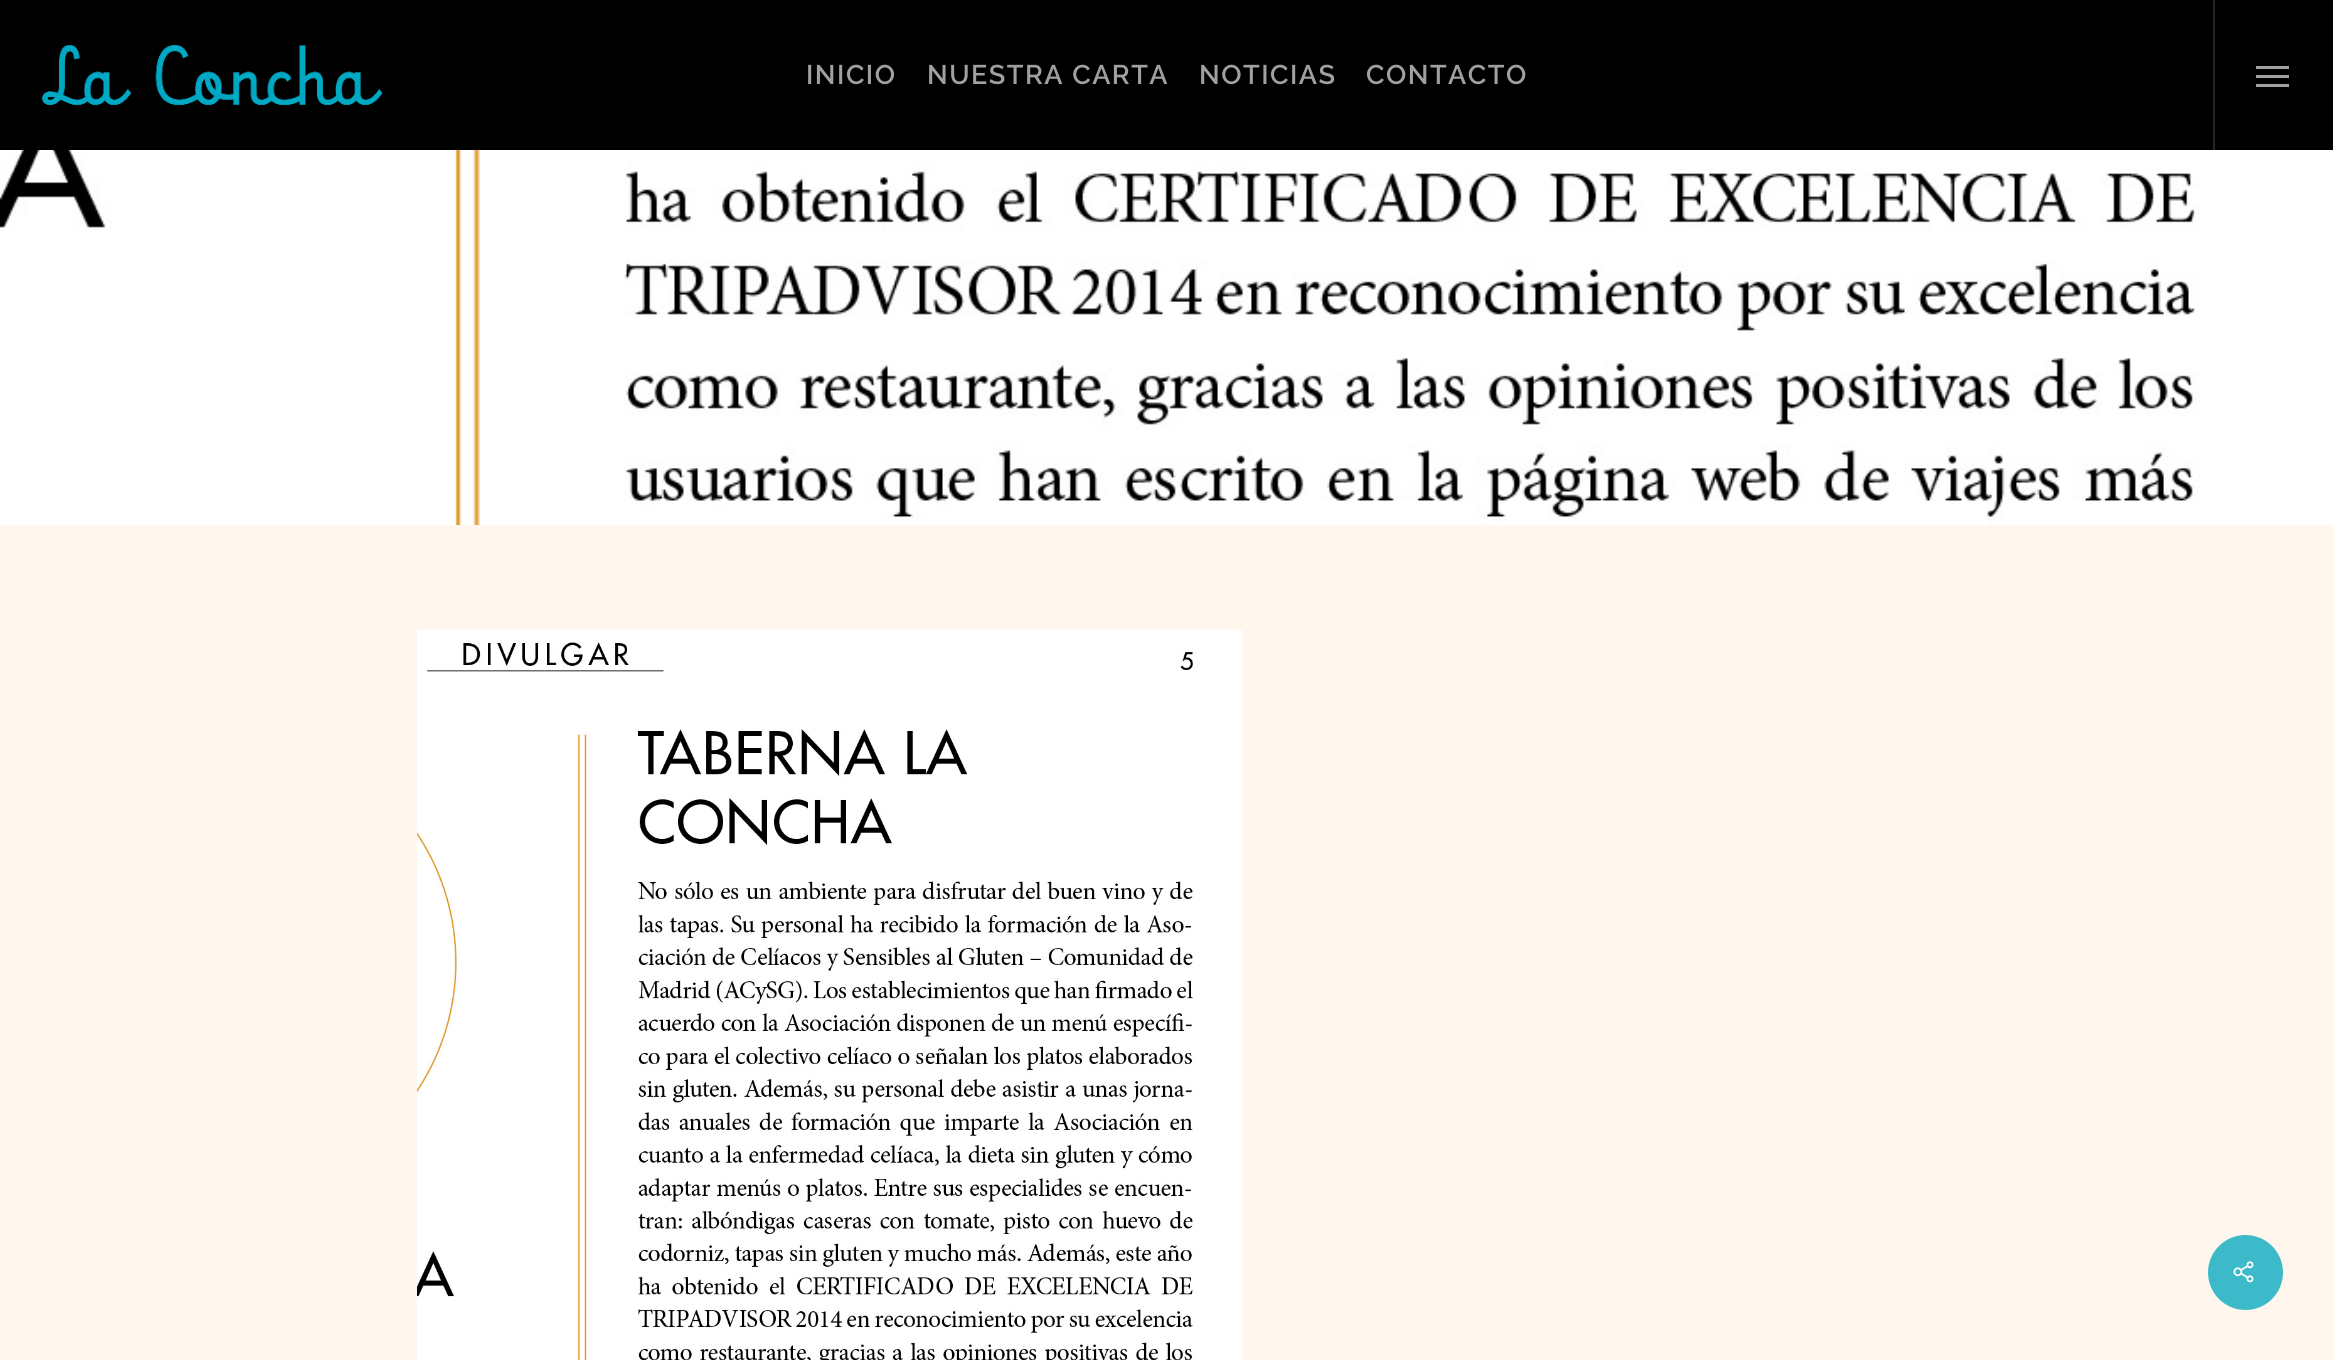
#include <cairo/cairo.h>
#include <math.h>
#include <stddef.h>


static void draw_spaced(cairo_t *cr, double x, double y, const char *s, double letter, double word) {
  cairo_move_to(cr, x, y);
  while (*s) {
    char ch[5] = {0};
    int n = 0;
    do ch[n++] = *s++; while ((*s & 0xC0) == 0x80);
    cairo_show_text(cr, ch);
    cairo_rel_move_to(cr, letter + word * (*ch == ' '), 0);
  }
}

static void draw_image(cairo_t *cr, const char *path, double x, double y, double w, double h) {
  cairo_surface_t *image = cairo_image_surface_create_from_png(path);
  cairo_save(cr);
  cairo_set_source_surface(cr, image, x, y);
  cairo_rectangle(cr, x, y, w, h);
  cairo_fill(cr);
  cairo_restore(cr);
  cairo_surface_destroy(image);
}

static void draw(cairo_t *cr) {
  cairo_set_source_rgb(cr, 1, 1, 1);
  cairo_paint(cr);
  cairo_set_source_rgb(cr, 0, 0, 0);
  cairo_rectangle(cr, 0, 0, 2333, 150);
  cairo_fill(cr);
  draw_image(cr, "images/1.png", 42, 45, 341, 60);
  cairo_set_source_rgb(cr, 38 / 255.0, 38 / 255.0, 38 / 255.0);
  cairo_rectangle(cr, 2213, 0, 2, 150);
  cairo_fill(cr);
  cairo_set_source_rgb(cr, 160 / 255.0, 160 / 255.0, 160 / 255.0);
  cairo_rectangle(cr, 2256, 66, 33, 3);
  cairo_fill(cr);
  cairo_rectangle(cr, 2256, 84, 33, 3);
  cairo_fill(cr);
  cairo_rectangle(cr, 2256, 75, 33, 3);
  cairo_fill(cr);
  draw_image(cr, "images/2.png", 0, 150, 2333, 375);
  cairo_set_source_rgb(cr, 1, 246 / 255.0, 237 / 255.0);
  cairo_rectangle(cr, 0, 525, 2333, 835);
  cairo_fill(cr);
  draw_image(cr, "images/3.png", 417, 630, 825, 730);
  cairo_set_source_rgb(cr, 61 / 255.0, 186 / 255.0, 201 / 255.0);
  cairo_arc(cr, 2245.5, 1272.5, 37.5, 0, 2 * M_PI);
  cairo_fill(cr);
  draw_image(cr, "images/4.png", 2233, 1261, 21, 22);
  cairo_select_font_face(cr, "Raleway SemiBold", CAIRO_FONT_SLANT_NORMAL, CAIRO_FONT_WEIGHT_NORMAL);
  cairo_set_font_size(cr, 27);
  cairo_set_source_rgb(cr, 160 / 255.0, 160 / 255.0, 160 / 255.0);
  draw_spaced(cr, 806, 84, "INICIO", 1.5, 0);
  draw_spaced(cr, 927, 84, "NUESTRA CARTA", 1.5, 0);
  draw_spaced(cr, 1199, 84, "NOTICIAS", 1.5, 0);
  draw_spaced(cr, 1366, 84, "CONTACTO", 1.5, 0);
}

int main(void) {
  cairo_surface_t *surface = cairo_image_surface_create(CAIRO_FORMAT_RGB24, 2333, 1360);
  cairo_t *cr = cairo_create(surface);
  cairo_font_options_t *options = cairo_font_options_create();
  cairo_font_options_set_hint_metrics(options, CAIRO_HINT_METRICS_OFF);
  cairo_font_options_set_hint_style(options, CAIRO_HINT_STYLE_NONE);
  cairo_set_font_options(cr, options);
  cairo_set_miter_limit(cr, 4);
  draw(cr);
  cairo_surface_write_to_png(surface, "out.png");
  cairo_font_options_destroy(options);
  cairo_destroy(cr);
  cairo_surface_destroy(surface);
  return 0;
}
